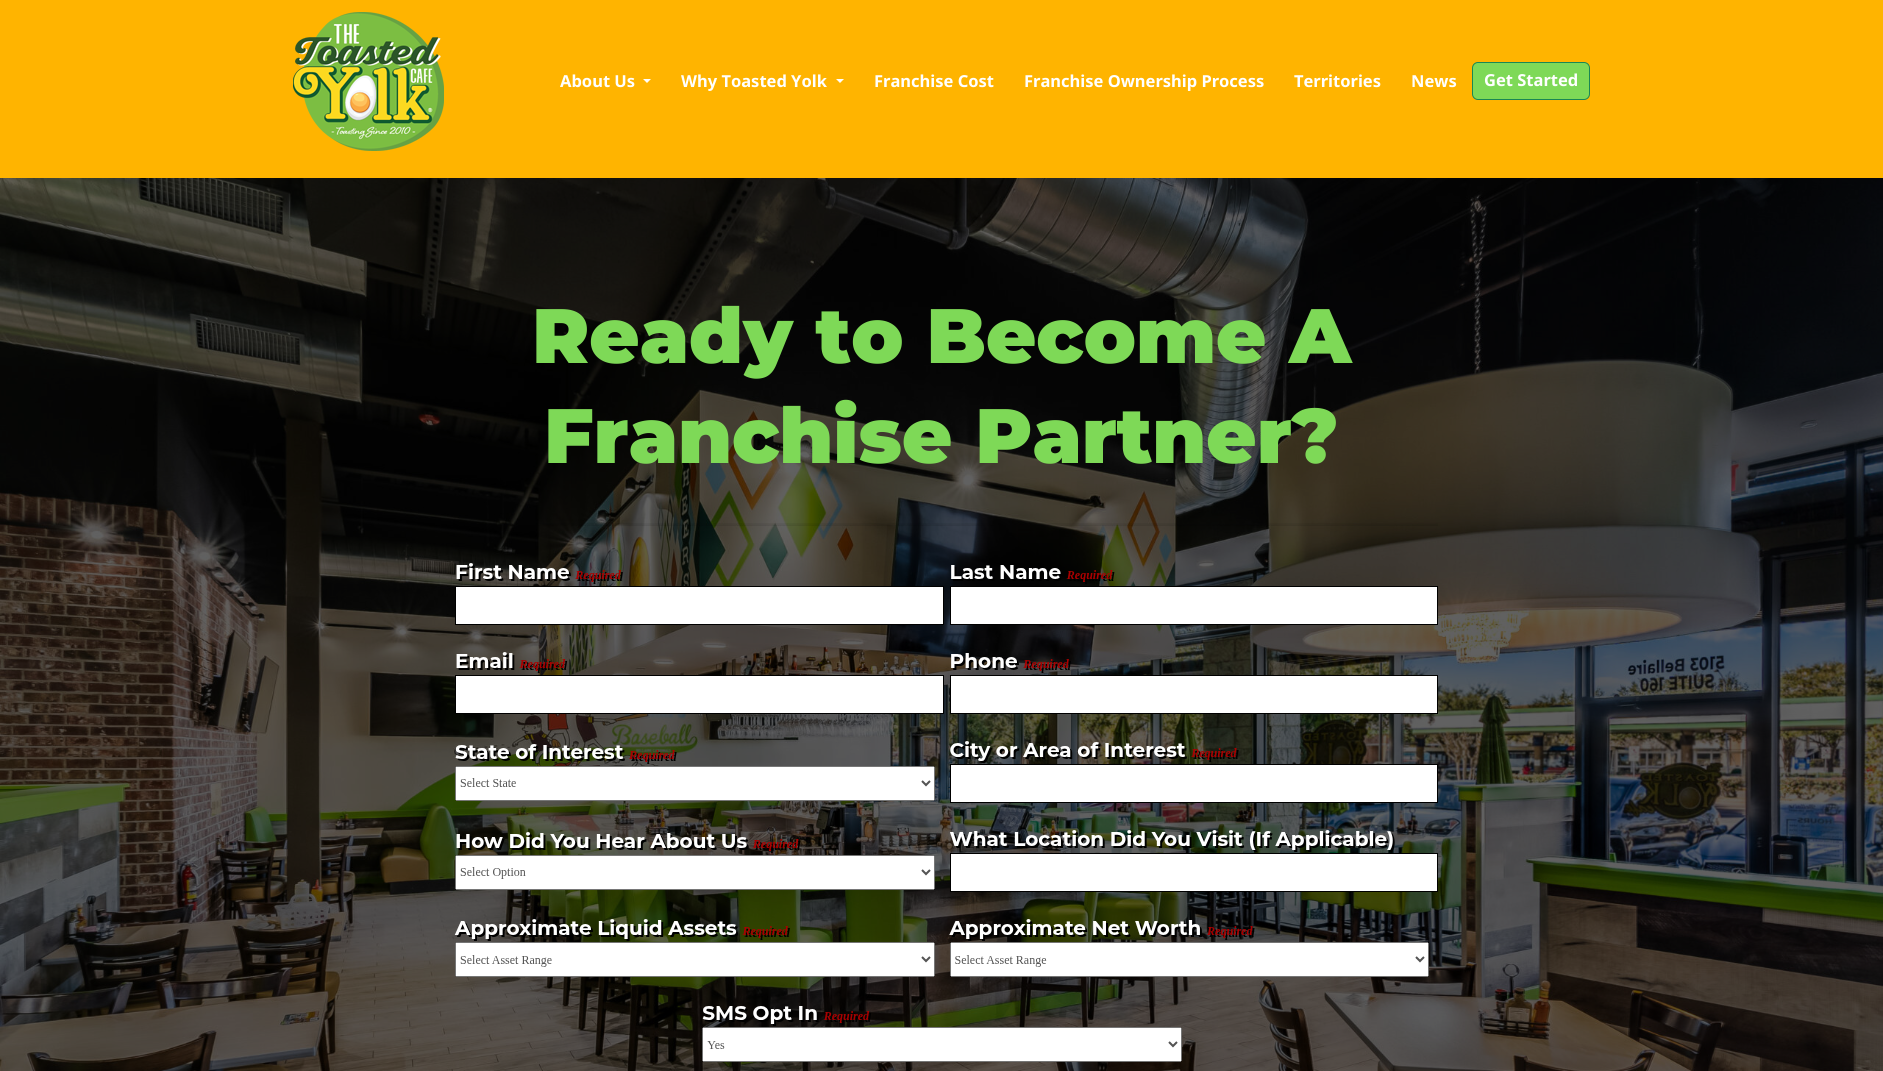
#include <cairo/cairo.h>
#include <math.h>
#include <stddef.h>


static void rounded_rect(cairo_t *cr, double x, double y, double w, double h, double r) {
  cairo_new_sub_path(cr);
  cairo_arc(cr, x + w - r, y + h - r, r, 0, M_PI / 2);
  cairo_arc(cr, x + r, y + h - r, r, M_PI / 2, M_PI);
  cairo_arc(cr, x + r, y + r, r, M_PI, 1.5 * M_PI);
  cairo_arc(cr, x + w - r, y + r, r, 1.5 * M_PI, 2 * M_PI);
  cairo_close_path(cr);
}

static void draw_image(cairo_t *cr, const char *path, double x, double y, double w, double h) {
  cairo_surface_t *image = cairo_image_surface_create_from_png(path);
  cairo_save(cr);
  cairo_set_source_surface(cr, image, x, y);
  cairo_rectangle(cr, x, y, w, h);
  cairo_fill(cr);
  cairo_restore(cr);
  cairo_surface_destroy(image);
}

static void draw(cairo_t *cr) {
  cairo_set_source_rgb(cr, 1, 180 / 255.0, 0);
  cairo_paint(cr);
  draw_image(cr, "images/1.png", 293, 12, 151, 139);
  cairo_set_source_rgb(cr, 1, 1, 1);
  cairo_new_path(cr);
  cairo_move_to(cr, 643, 79);
  cairo_line_to(cr, 651, 79);
  cairo_line_to(cr, 647, 83);
  cairo_close_path(cr);
  cairo_fill(cr);
  cairo_new_path(cr);
  cairo_move_to(cr, 836, 79);
  cairo_line_to(cr, 844, 79);
  cairo_line_to(cr, 840, 83);
  cairo_close_path(cr);
  cairo_fill(cr);
  cairo_set_source_rgb(cr, 126 / 255.0, 217 / 255.0, 87 / 255.0);
  rounded_rect(cr, 1472.5, 62.5, 117, 37, 5.5);
  cairo_fill_preserve(cr);
  cairo_set_source_rgb(cr, 25 / 255.0, 135 / 255.0, 84 / 255.0);
  cairo_set_line_width(cr, 1);
  cairo_stroke(cr);
  draw_image(cr, "images/2.png", 0, 178, 1883, 893);
  draw_image(cr, "images/3.png", 454, 523, 984, 539);
  cairo_select_font_face(cr, "Noto Sans", CAIRO_FONT_SLANT_NORMAL, CAIRO_FONT_WEIGHT_BOLD);
  cairo_set_font_size(cr, 16.5);
  cairo_set_source_rgb(cr, 1, 1, 1);
  cairo_move_to(cr, 560, 87);
  cairo_show_text(cr, "About Us");
  cairo_move_to(cr, 681, 87);
  cairo_show_text(cr, "Why Toasted Yolk");
  cairo_move_to(cr, 874, 87);
  cairo_show_text(cr, "Franchise Cost");
  cairo_move_to(cr, 1024, 87);
  cairo_show_text(cr, "Franchise Ownership Process");
  cairo_move_to(cr, 1294, 87);
  cairo_show_text(cr, "Territories");
  cairo_move_to(cr, 1411, 87);
  cairo_show_text(cr, "News");
  cairo_move_to(cr, 1484, 86);
  cairo_show_text(cr, "Get Started");
  cairo_select_font_face(cr, "Montserrat Black", CAIRO_FONT_SLANT_NORMAL, CAIRO_FONT_WEIGHT_NORMAL);
  cairo_set_font_size(cr, 77);
  cairo_set_source_rgb(cr, 126 / 255.0, 217 / 255.0, 87 / 255.0);
  cairo_move_to(cr, 532, 363);
  cairo_show_text(cr, "Ready to Become A");
  cairo_move_to(cr, 544, 463);
  cairo_show_text(cr, "Franchise Partner?");
}

int main(void) {
  cairo_surface_t *surface = cairo_image_surface_create(CAIRO_FORMAT_RGB24, 1883, 1071);
  cairo_t *cr = cairo_create(surface);
  cairo_font_options_t *options = cairo_font_options_create();
  cairo_font_options_set_hint_metrics(options, CAIRO_HINT_METRICS_OFF);
  cairo_font_options_set_hint_style(options, CAIRO_HINT_STYLE_NONE);
  cairo_set_font_options(cr, options);
  cairo_set_miter_limit(cr, 4);
  draw(cr);
  cairo_surface_write_to_png(surface, "out.png");
  cairo_font_options_destroy(options);
  cairo_destroy(cr);
  cairo_surface_destroy(surface);
  return 0;
}
